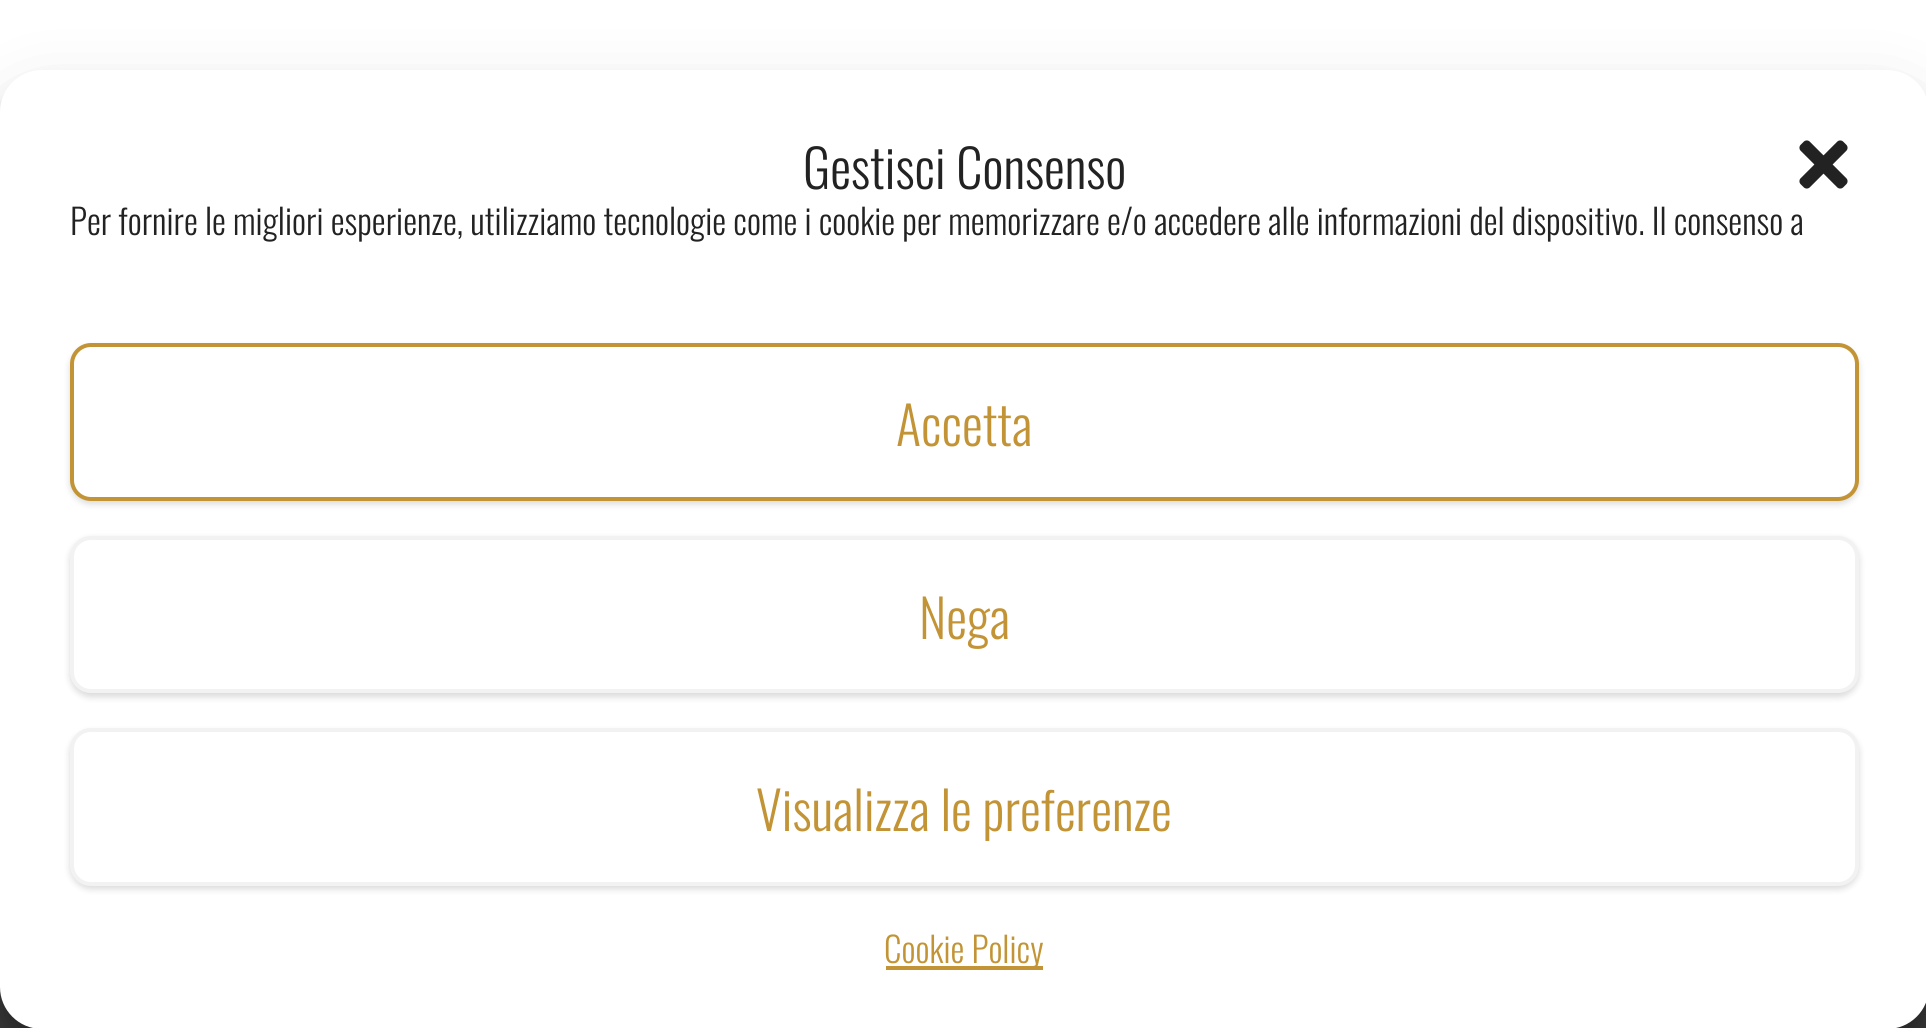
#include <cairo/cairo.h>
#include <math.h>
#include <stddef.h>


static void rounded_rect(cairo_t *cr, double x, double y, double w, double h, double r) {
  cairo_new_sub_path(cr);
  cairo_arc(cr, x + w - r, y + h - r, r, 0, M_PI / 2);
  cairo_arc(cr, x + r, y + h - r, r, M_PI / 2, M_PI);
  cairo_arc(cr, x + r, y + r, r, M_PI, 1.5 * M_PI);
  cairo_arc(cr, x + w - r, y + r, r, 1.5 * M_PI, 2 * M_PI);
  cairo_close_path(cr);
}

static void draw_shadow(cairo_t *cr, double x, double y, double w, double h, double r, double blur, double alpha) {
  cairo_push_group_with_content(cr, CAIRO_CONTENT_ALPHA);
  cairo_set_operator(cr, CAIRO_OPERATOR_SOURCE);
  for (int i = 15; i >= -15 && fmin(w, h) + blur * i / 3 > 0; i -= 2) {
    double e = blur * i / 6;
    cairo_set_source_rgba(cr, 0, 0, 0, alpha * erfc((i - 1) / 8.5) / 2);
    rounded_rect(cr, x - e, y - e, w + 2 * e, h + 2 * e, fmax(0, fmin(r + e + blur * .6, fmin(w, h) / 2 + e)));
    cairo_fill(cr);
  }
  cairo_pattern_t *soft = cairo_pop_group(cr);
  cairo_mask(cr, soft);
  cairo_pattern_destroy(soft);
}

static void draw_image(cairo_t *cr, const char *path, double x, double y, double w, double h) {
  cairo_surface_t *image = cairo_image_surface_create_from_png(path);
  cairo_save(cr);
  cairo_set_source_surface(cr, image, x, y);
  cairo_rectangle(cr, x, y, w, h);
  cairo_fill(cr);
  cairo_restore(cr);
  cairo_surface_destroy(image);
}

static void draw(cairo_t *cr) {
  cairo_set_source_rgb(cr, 1, 1, 1);
  cairo_paint(cr);
  cairo_set_source_rgb(cr, 60 / 255.0, 60 / 255.0, 60 / 255.0);
  cairo_rectangle(cr, 0, 987, 1926, 41);
  cairo_fill(cr);
  cairo_set_source_rgb(cr, 0, 0, 0);
  draw_shadow(cr, 0, 91, 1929, 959, 42, 10.5, 0.23);
  draw_shadow(cr, 0, 105, 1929, 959, 42, 35, 0.19);
  cairo_set_source_rgb(cr, 1, 1, 1);
  rounded_rect(cr, 0, 70, 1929, 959, 42);
  cairo_fill(cr);
  draw_image(cr, "images/1.png", 1799, 140, 49, 49);
  cairo_set_source_rgb(cr, 0, 0, 0);
  draw_shadow(cr, 70, 347, 1789, 157, 21, 3.5, 0.15);
  cairo_set_source_rgb(cr, 1, 1, 1);
  rounded_rect(cr, 72, 345, 1785, 154, 19);
  cairo_fill_preserve(cr);
  cairo_set_source_rgb(cr, 194 / 255.0, 148 / 255.0, 54 / 255.0);
  cairo_set_line_width(cr, 4);
  cairo_stroke(cr);
  cairo_set_source_rgb(cr, 0, 0, 0);
  draw_shadow(cr, 70, 539, 1789, 158, 21, 3.5, 0.15);
  cairo_set_source_rgb(cr, 1, 1, 1);
  rounded_rect(cr, 72, 538, 1785, 153, 19);
  cairo_fill_preserve(cr);
  cairo_set_source_rgb(cr, 242 / 255.0, 242 / 255.0, 242 / 255.0);
  cairo_stroke(cr);
  cairo_set_source_rgb(cr, 0, 0, 0);
  draw_shadow(cr, 70, 732, 1789, 157, 21, 3.5, 0.15);
  cairo_set_source_rgb(cr, 1, 1, 1);
  rounded_rect(cr, 72, 730, 1785, 154, 19);
  cairo_fill_preserve(cr);
  cairo_set_source_rgb(cr, 242 / 255.0, 242 / 255.0, 242 / 255.0);
  cairo_stroke(cr);
  cairo_set_source_rgb(cr, 194 / 255.0, 148 / 255.0, 54 / 255.0);
  cairo_rectangle(cr, 886, 966, 157, 4);
  cairo_fill(cr);
  cairo_select_font_face(cr, "Oswald Light", CAIRO_FONT_SLANT_NORMAL, CAIRO_FONT_WEIGHT_NORMAL);
  cairo_set_font_size(cr, 52.5);
  cairo_set_source_rgb(cr, 34 / 255.0, 34 / 255.0, 34 / 255.0);
  cairo_move_to(cr, 803, 189);
  cairo_show_text(cr, "Gestisci Consenso");
  cairo_set_font_size(cr, 35);
  cairo_move_to(cr, 70, 235);
  cairo_show_text(cr, "Per fornire le migliori esperienze, utilizziamo tecnologie come i cookie per memorizzare e/o accedere alle informazioni del dispositivo. Il consenso a");
  cairo_set_font_size(cr, 52.5);
  cairo_set_source_rgb(cr, 194 / 255.0, 148 / 255.0, 54 / 255.0);
  cairo_move_to(cr, 896, 446);
  cairo_show_text(cr, "Accetta");
  cairo_move_to(cr, 919, 639);
  cairo_show_text(cr, "Nega");
  cairo_move_to(cr, 756, 831);
  cairo_show_text(cr, "Visualizza le preferenze");
  cairo_set_font_size(cr, 35);
  cairo_move_to(cr, 884, 963);
  cairo_show_text(cr, "Cookie Policy");
}

int main(void) {
  cairo_surface_t *surface = cairo_image_surface_create(CAIRO_FORMAT_RGB24, 1926, 1028);
  cairo_t *cr = cairo_create(surface);
  cairo_font_options_t *options = cairo_font_options_create();
  cairo_font_options_set_hint_metrics(options, CAIRO_HINT_METRICS_OFF);
  cairo_font_options_set_hint_style(options, CAIRO_HINT_STYLE_NONE);
  cairo_set_font_options(cr, options);
  cairo_set_miter_limit(cr, 4);
  draw(cr);
  cairo_surface_write_to_png(surface, "out.png");
  cairo_font_options_destroy(options);
  cairo_destroy(cr);
  cairo_surface_destroy(surface);
  return 0;
}
